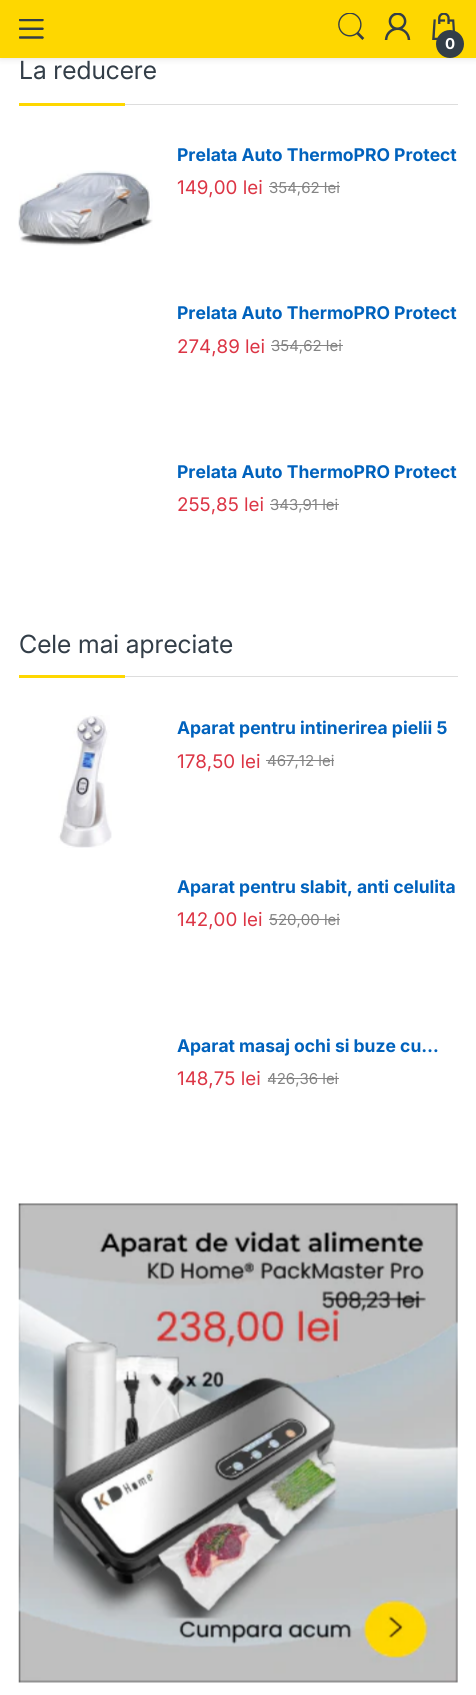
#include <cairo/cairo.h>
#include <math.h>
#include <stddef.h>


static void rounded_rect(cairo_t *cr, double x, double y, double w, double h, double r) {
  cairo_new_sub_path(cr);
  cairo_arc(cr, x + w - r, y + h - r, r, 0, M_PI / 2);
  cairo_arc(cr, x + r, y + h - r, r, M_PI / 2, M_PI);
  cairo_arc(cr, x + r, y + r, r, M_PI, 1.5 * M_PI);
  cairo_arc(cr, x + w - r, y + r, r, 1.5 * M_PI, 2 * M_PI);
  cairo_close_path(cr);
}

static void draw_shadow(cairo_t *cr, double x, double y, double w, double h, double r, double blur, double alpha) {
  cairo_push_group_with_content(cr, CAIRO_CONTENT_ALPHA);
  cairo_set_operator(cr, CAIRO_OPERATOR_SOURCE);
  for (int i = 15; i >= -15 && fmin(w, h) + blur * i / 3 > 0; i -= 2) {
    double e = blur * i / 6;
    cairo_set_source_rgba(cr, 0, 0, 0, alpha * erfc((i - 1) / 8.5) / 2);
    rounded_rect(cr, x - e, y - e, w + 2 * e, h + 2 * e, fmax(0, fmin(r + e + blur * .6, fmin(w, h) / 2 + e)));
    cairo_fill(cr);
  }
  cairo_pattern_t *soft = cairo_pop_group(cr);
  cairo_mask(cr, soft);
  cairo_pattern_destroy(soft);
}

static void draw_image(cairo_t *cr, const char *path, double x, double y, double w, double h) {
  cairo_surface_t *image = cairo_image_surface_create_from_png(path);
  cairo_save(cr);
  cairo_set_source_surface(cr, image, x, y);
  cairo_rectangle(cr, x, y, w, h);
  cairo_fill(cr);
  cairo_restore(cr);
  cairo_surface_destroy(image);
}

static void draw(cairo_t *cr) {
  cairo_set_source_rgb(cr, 1, 1, 1);
  cairo_paint(cr);
  cairo_set_source_rgb(cr, 32 / 255.0, 33 / 255.0, 36 / 255.0);
  draw_shadow(cr, 0, 0, 476, 58, 0, 4, 0.15);
  cairo_set_source_rgb(cr, 254 / 255.0, 215 / 255.0, 0);
  cairo_rectangle(cr, 0, 0, 476, 58);
  cairo_fill(cr);
  draw_image(cr, "images/1.png", 19, 19, 25, 20);
  draw_image(cr, "images/2.png", 338, 13, 27, 27);
  draw_image(cr, "images/3.png", 384, 13, 27, 27);
  draw_image(cr, "images/4.png", 432, 13, 23, 27);
  cairo_set_source_rgb(cr, 51 / 255.0, 62 / 255.0, 72 / 255.0);
  cairo_arc(cr, 450, 44, 14, 0, 2 * M_PI);
  cairo_fill(cr);
  cairo_set_source_rgb(cr, 221 / 255.0, 221 / 255.0, 221 / 255.0);
  cairo_rectangle(cr, 125, 104, 333, 1);
  cairo_fill(cr);
  cairo_set_source_rgb(cr, 254 / 255.0, 215 / 255.0, 0);
  cairo_rectangle(cr, 19, 103, 106, 3);
  cairo_fill(cr);
  draw_image(cr, "images/5.png", 18, 170, 135, 76);
  cairo_set_source_rgb(cr, 132 / 255.0, 132 / 255.0, 132 / 255.0);
  cairo_rectangle(cr, 269, 186, 71, 1);
  cairo_fill(cr);
  cairo_rectangle(cr, 271, 345, 72, 1);
  cairo_fill(cr);
  cairo_rectangle(cr, 270, 504, 69, 1);
  cairo_fill(cr);
  cairo_set_source_rgb(cr, 221 / 255.0, 221 / 255.0, 221 / 255.0);
  cairo_rectangle(cr, 125, 676, 333, 1);
  cairo_fill(cr);
  cairo_set_source_rgb(cr, 254 / 255.0, 215 / 255.0, 0);
  cairo_rectangle(cr, 19, 675, 106, 3);
  cairo_fill(cr);
  draw_image(cr, "images/6.png", 58, 715, 54, 133);
  cairo_set_source_rgb(cr, 132 / 255.0, 132 / 255.0, 132 / 255.0);
  cairo_rectangle(cr, 266, 760, 68, 1);
  cairo_fill(cr);
  cairo_rectangle(cr, 269, 919, 71, 1);
  cairo_fill(cr);
  cairo_rectangle(cr, 268, 1078, 71, 1);
  cairo_fill(cr);
  draw_image(cr, "images/7.png", 18, 1203, 440, 480);
  cairo_select_font_face(cr, "Inter", CAIRO_FONT_SLANT_NORMAL, CAIRO_FONT_WEIGHT_BOLD);
  cairo_set_font_size(cr, 15);
  cairo_set_source_rgb(cr, 1, 1, 1);
  cairo_move_to(cr, 445, 49);
  cairo_show_text(cr, "0");
  cairo_select_font_face(cr, "Inter", CAIRO_FONT_SLANT_NORMAL, CAIRO_FONT_WEIGHT_NORMAL);
  cairo_set_font_size(cr, 25);
  cairo_set_source_rgb(cr, 51 / 255.0, 62 / 255.0, 72 / 255.0);
  cairo_move_to(cr, 19, 79);
  cairo_show_text(cr, "La reducere");
  cairo_select_font_face(cr, "Inter", CAIRO_FONT_SLANT_NORMAL, CAIRO_FONT_WEIGHT_BOLD);
  cairo_set_font_size(cr, 17.5);
  cairo_set_source_rgb(cr, 0, 98 / 255.0, 189 / 255.0);
  cairo_move_to(cr, 177, 161);
  cairo_show_text(cr, "Prelata Auto ThermoPRO Protect");
  cairo_select_font_face(cr, "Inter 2", CAIRO_FONT_SLANT_NORMAL, CAIRO_FONT_WEIGHT_NORMAL);
  cairo_set_font_size(cr, 18.75);
  cairo_set_source_rgb(cr, 220 / 255.0, 53 / 255.0, 69 / 255.0);
  cairo_move_to(cr, 177, 194);
  cairo_show_text(cr, "149,00 lei");
  cairo_set_font_size(cr, 15);
  cairo_set_source_rgb(cr, 132 / 255.0, 132 / 255.0, 132 / 255.0);
  cairo_move_to(cr, 269, 193);
  cairo_show_text(cr, "354,62 lei");
  cairo_select_font_face(cr, "Inter", CAIRO_FONT_SLANT_NORMAL, CAIRO_FONT_WEIGHT_BOLD);
  cairo_set_font_size(cr, 17.5);
  cairo_set_source_rgb(cr, 0, 98 / 255.0, 189 / 255.0);
  cairo_move_to(cr, 177, 319);
  cairo_show_text(cr, "Prelata Auto ThermoPRO Protect");
  cairo_select_font_face(cr, "Inter 2", CAIRO_FONT_SLANT_NORMAL, CAIRO_FONT_WEIGHT_NORMAL);
  cairo_set_font_size(cr, 18.75);
  cairo_set_source_rgb(cr, 220 / 255.0, 53 / 255.0, 69 / 255.0);
  cairo_move_to(cr, 177, 353);
  cairo_show_text(cr, "274,89 lei");
  cairo_set_font_size(cr, 15);
  cairo_set_source_rgb(cr, 132 / 255.0, 132 / 255.0, 132 / 255.0);
  cairo_move_to(cr, 271, 351);
  cairo_show_text(cr, "354,62 lei");
  cairo_select_font_face(cr, "Inter", CAIRO_FONT_SLANT_NORMAL, CAIRO_FONT_WEIGHT_BOLD);
  cairo_set_font_size(cr, 17.5);
  cairo_set_source_rgb(cr, 0, 98 / 255.0, 189 / 255.0);
  cairo_move_to(cr, 177, 478);
  cairo_show_text(cr, "Prelata Auto ThermoPRO Protect");
  cairo_select_font_face(cr, "Inter 2", CAIRO_FONT_SLANT_NORMAL, CAIRO_FONT_WEIGHT_NORMAL);
  cairo_set_font_size(cr, 18.75);
  cairo_set_source_rgb(cr, 220 / 255.0, 53 / 255.0, 69 / 255.0);
  cairo_move_to(cr, 177, 511);
  cairo_show_text(cr, "255,85 lei");
  cairo_set_font_size(cr, 15);
  cairo_set_source_rgb(cr, 132 / 255.0, 132 / 255.0, 132 / 255.0);
  cairo_move_to(cr, 270, 510);
  cairo_show_text(cr, "343,91 lei");
  cairo_select_font_face(cr, "Inter", CAIRO_FONT_SLANT_NORMAL, CAIRO_FONT_WEIGHT_NORMAL);
  cairo_set_font_size(cr, 25);
  cairo_set_source_rgb(cr, 51 / 255.0, 62 / 255.0, 72 / 255.0);
  cairo_move_to(cr, 19, 653);
  cairo_show_text(cr, "Cele mai apreciate");
  cairo_select_font_face(cr, "Inter", CAIRO_FONT_SLANT_NORMAL, CAIRO_FONT_WEIGHT_BOLD);
  cairo_set_font_size(cr, 17.5);
  cairo_set_source_rgb(cr, 0, 98 / 255.0, 189 / 255.0);
  cairo_move_to(cr, 177, 734);
  cairo_show_text(cr, "Aparat pentru intinerirea pielii 5");
  cairo_select_font_face(cr, "Inter 2", CAIRO_FONT_SLANT_NORMAL, CAIRO_FONT_WEIGHT_NORMAL);
  cairo_set_font_size(cr, 18.75);
  cairo_set_source_rgb(cr, 220 / 255.0, 53 / 255.0, 69 / 255.0);
  cairo_move_to(cr, 177, 768);
  cairo_show_text(cr, "178,50 lei");
  cairo_set_font_size(cr, 15);
  cairo_set_source_rgb(cr, 132 / 255.0, 132 / 255.0, 132 / 255.0);
  cairo_move_to(cr, 267, 766);
  cairo_show_text(cr, "467,12 lei");
  cairo_select_font_face(cr, "Inter", CAIRO_FONT_SLANT_NORMAL, CAIRO_FONT_WEIGHT_BOLD);
  cairo_set_font_size(cr, 17.5);
  cairo_set_source_rgb(cr, 0, 98 / 255.0, 189 / 255.0);
  cairo_move_to(cr, 177, 893);
  cairo_show_text(cr, "Aparat pentru slabit, anti celulita");
  cairo_select_font_face(cr, "Inter 2", CAIRO_FONT_SLANT_NORMAL, CAIRO_FONT_WEIGHT_NORMAL);
  cairo_set_font_size(cr, 18.75);
  cairo_set_source_rgb(cr, 220 / 255.0, 53 / 255.0, 69 / 255.0);
  cairo_move_to(cr, 177, 926);
  cairo_show_text(cr, "142,00 lei");
  cairo_set_font_size(cr, 15);
  cairo_set_source_rgb(cr, 132 / 255.0, 132 / 255.0, 132 / 255.0);
  cairo_move_to(cr, 269, 925);
  cairo_show_text(cr, "520,00 lei");
  cairo_select_font_face(cr, "Inter", CAIRO_FONT_SLANT_NORMAL, CAIRO_FONT_WEIGHT_BOLD);
  cairo_set_font_size(cr, 17.5);
  cairo_set_source_rgb(cr, 0, 98 / 255.0, 189 / 255.0);
  cairo_move_to(cr, 177, 1052);
  cairo_show_text(cr, "Aparat masaj ochi si buze cu…");
  cairo_select_font_face(cr, "Inter 2", CAIRO_FONT_SLANT_NORMAL, CAIRO_FONT_WEIGHT_NORMAL);
  cairo_set_font_size(cr, 18.75);
  cairo_set_source_rgb(cr, 220 / 255.0, 53 / 255.0, 69 / 255.0);
  cairo_move_to(cr, 177, 1085);
  cairo_show_text(cr, "148,75 lei");
  cairo_set_font_size(cr, 15);
  cairo_set_source_rgb(cr, 132 / 255.0, 132 / 255.0, 132 / 255.0);
  cairo_move_to(cr, 267, 1084);
  cairo_show_text(cr, "426,36 lei");
}

int main(void) {
  cairo_surface_t *surface = cairo_image_surface_create(CAIRO_FORMAT_RGB24, 476, 1695);
  cairo_t *cr = cairo_create(surface);
  cairo_font_options_t *options = cairo_font_options_create();
  cairo_font_options_set_hint_metrics(options, CAIRO_HINT_METRICS_OFF);
  cairo_font_options_set_hint_style(options, CAIRO_HINT_STYLE_NONE);
  cairo_set_font_options(cr, options);
  cairo_set_miter_limit(cr, 4);
  draw(cr);
  cairo_surface_write_to_png(surface, "out.png");
  cairo_font_options_destroy(options);
  cairo_destroy(cr);
  cairo_surface_destroy(surface);
  return 0;
}
